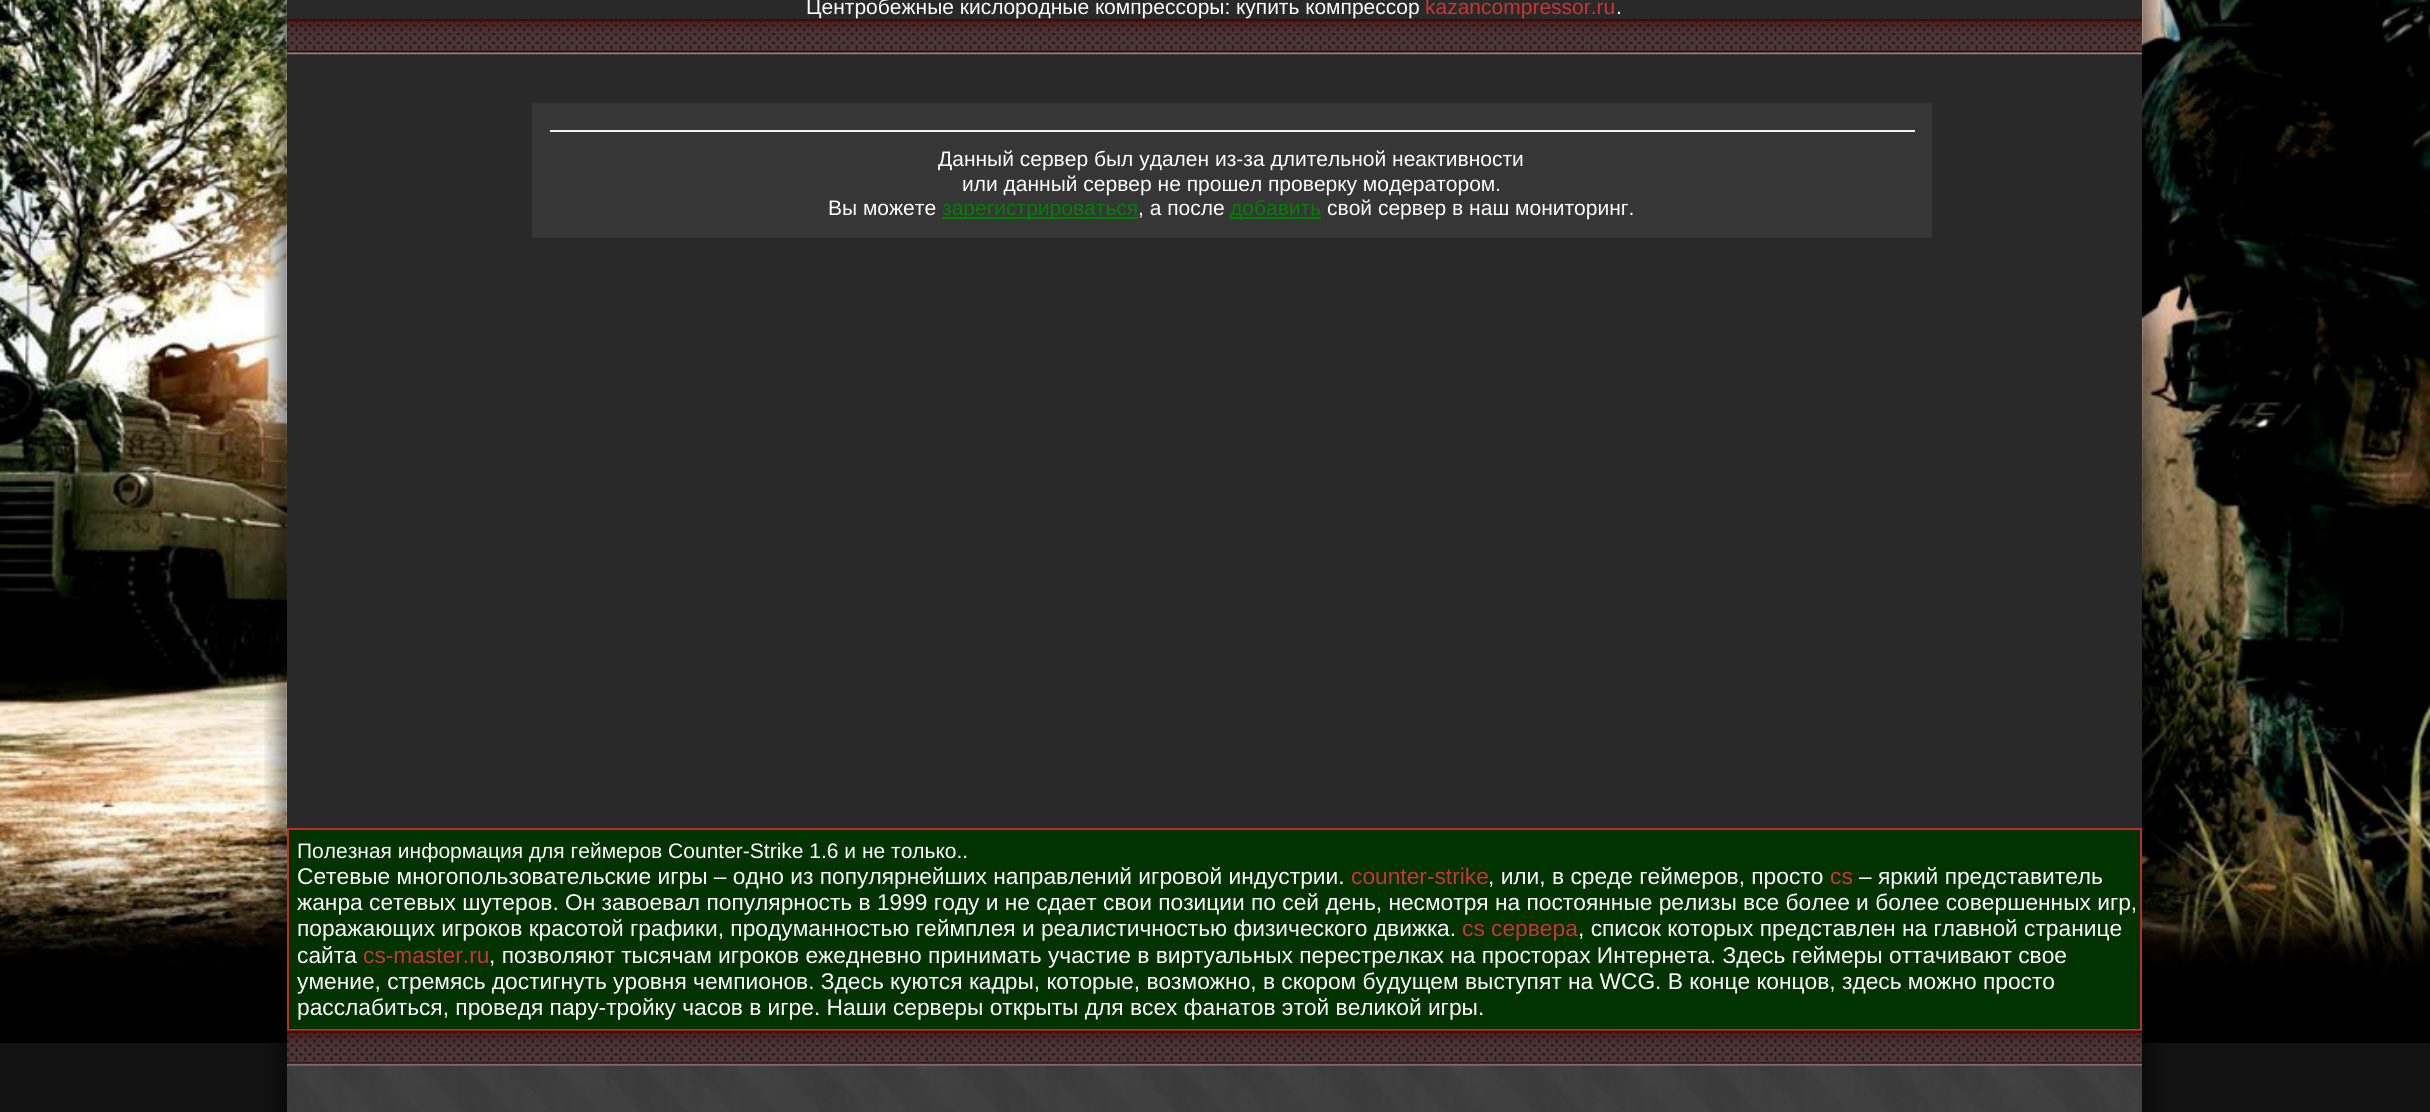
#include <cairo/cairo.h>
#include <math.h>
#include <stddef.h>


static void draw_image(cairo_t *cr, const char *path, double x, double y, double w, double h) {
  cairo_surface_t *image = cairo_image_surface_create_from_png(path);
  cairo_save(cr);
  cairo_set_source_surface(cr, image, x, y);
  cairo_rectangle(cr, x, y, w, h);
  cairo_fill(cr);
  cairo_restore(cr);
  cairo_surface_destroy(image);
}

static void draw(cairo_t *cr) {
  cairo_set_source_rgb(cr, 18 / 255.0, 18 / 255.0, 18 / 255.0);
  cairo_paint(cr);
  draw_image(cr, "images/1.png", 0, 0, 2430, 1043);
  draw_image(cr, "images/2.png", 264, 0, 1904, 1112);
  cairo_set_source_rgb(cr, 41 / 255.0, 41 / 255.0, 41 / 255.0);
  cairo_rectangle(cr, 287, 0, 1855, 1066);
  cairo_fill(cr);
  draw_image(cr, "images/3.png", 287, 19, 1855, 36);
  cairo_set_source_rgb(cr, 54 / 255.0, 54 / 255.0, 54 / 255.0);
  cairo_rectangle(cr, 532, 103, 1400, 135);
  cairo_fill(cr);
  cairo_set_source_rgb(cr, 238 / 255.0, 238 / 255.0, 238 / 255.0);
  cairo_rectangle(cr, 550, 130, 1365, 2);
  cairo_fill(cr);
  cairo_set_source_rgb(cr, 0, 128 / 255.0, 0);
  cairo_rectangle(cr, 942, 217, 196, 2);
  cairo_fill(cr);
  cairo_rectangle(cr, 1230, 217, 91, 2);
  cairo_fill(cr);
  cairo_set_source_rgb(cr, 0, 51 / 255.0, 0);
  cairo_rectangle(cr, 288, 829, 1853, 201);
  cairo_fill_preserve(cr);
  cairo_set_source_rgb(cr, 188 / 255.0, 46 / 255.0, 46 / 255.0);
  cairo_stroke(cr);
  draw_image(cr, "images/4.png", 287, 1030, 1855, 36);
  draw_image(cr, "images/5.png", 287, 1065, 1855, 47);
  cairo_select_font_face(cr, "Liberation Sans", CAIRO_FONT_SLANT_NORMAL, CAIRO_FONT_WEIGHT_NORMAL);
  cairo_set_font_size(cr, 21);
  cairo_set_source_rgb(cr, 1, 1, 1);
  cairo_move_to(cr, 806, 14);
  cairo_show_text(cr, "Центробежные кислородные компрессоры: купить компрессор");
  cairo_set_source_rgb(cr, 204 / 255.0, 51 / 255.0, 51 / 255.0);
  cairo_move_to(cr, 1425, 14);
  cairo_show_text(cr, "kazancompressor.ru");
  cairo_set_source_rgb(cr, 1, 1, 1);
  cairo_move_to(cr, 1616, 14);
  cairo_show_text(cr, ".");
  cairo_move_to(cr, 938, 166);
  cairo_show_text(cr, "Данный сервер был удален из-за длительной неактивности");
  cairo_move_to(cr, 962, 191);
  cairo_show_text(cr, "или данный сервер не прошел проверку модератором.");
  cairo_move_to(cr, 828, 215);
  cairo_show_text(cr, "Вы можете");
  cairo_set_source_rgb(cr, 0, 128 / 255.0, 0);
  cairo_move_to(cr, 942, 215);
  cairo_show_text(cr, "зарегистрироваться");
  cairo_set_source_rgb(cr, 1, 1, 1);
  cairo_move_to(cr, 1138, 215);
  cairo_show_text(cr, ", а после");
  cairo_set_source_rgb(cr, 0, 128 / 255.0, 0);
  cairo_move_to(cr, 1230, 215);
  cairo_show_text(cr, "добавить");
  cairo_set_source_rgb(cr, 1, 1, 1);
  cairo_move_to(cr, 1327, 215);
  cairo_show_text(cr, "свой сервер в наш мониторинг.");
  cairo_move_to(cr, 297, 858);
  cairo_show_text(cr, "Полезная информация для геймеров Counter-Strike 1.6 и не только..");
  cairo_set_font_size(cr, 22.75);
  cairo_move_to(cr, 297, 884);
  cairo_show_text(cr, "Сетевые многопользовательские игры – одно из популярнейших направлений игровой индустрии.");
  cairo_set_source_rgb(cr, 204 / 255.0, 51 / 255.0, 51 / 255.0);
  cairo_move_to(cr, 1351, 884);
  cairo_show_text(cr, "counter-strike");
  cairo_set_source_rgb(cr, 1, 1, 1);
  cairo_move_to(cr, 1488, 884);
  cairo_show_text(cr, ", или, в среде геймеров, просто");
  cairo_set_source_rgb(cr, 204 / 255.0, 51 / 255.0, 51 / 255.0);
  cairo_move_to(cr, 1830, 884);
  cairo_show_text(cr, "cs");
  cairo_set_source_rgb(cr, 1, 1, 1);
  cairo_move_to(cr, 1859, 884);
  cairo_show_text(cr, "– яркий представитель");
  cairo_move_to(cr, 297, 910);
  cairo_show_text(cr, "жанра сетевых шутеров. Он завоевал популярность в 1999 году и не сдает свои позиции по сей день, несмотря на постоянные релизы все более и более совершенных игр,");
  cairo_move_to(cr, 297, 936);
  cairo_show_text(cr, "поражающих игроков красотой графики, продуманностью геймплея и реалистичностью физического движка.");
  cairo_set_source_rgb(cr, 204 / 255.0, 51 / 255.0, 51 / 255.0);
  cairo_move_to(cr, 1462, 936);
  cairo_show_text(cr, "cs сервера");
  cairo_set_source_rgb(cr, 1, 1, 1);
  cairo_move_to(cr, 1578, 936);
  cairo_show_text(cr, ", список которых представлен на главной странице");
  cairo_move_to(cr, 297, 963);
  cairo_show_text(cr, "сайта");
  cairo_set_source_rgb(cr, 204 / 255.0, 51 / 255.0, 51 / 255.0);
  cairo_move_to(cr, 363, 963);
  cairo_show_text(cr, "cs-master.ru");
  cairo_set_source_rgb(cr, 1, 1, 1);
  cairo_move_to(cr, 489, 963);
  cairo_show_text(cr, ", позволяют тысячам игроков ежедневно принимать участие в виртуальных перестрелках на просторах Интернета. Здесь геймеры оттачивают свое");
  cairo_move_to(cr, 297, 989);
  cairo_show_text(cr, "умение, стремясь достигнуть уровня чемпионов. Здесь куются кадры, которые, возможно, в скором будущем выступят на WCG. В конце концов, здесь можно просто");
  cairo_move_to(cr, 297, 1015);
  cairo_show_text(cr, "расслабиться, проведя пару-тройку часов в игре. Наши серверы открыты для всех фанатов этой великой игры.");
}

int main(void) {
  cairo_surface_t *surface = cairo_image_surface_create(CAIRO_FORMAT_RGB24, 2430, 1112);
  cairo_t *cr = cairo_create(surface);
  cairo_font_options_t *options = cairo_font_options_create();
  cairo_font_options_set_hint_metrics(options, CAIRO_HINT_METRICS_OFF);
  cairo_font_options_set_hint_style(options, CAIRO_HINT_STYLE_NONE);
  cairo_set_font_options(cr, options);
  cairo_set_miter_limit(cr, 4);
  draw(cr);
  cairo_surface_write_to_png(surface, "out.png");
  cairo_font_options_destroy(options);
  cairo_destroy(cr);
  cairo_surface_destroy(surface);
  return 0;
}
